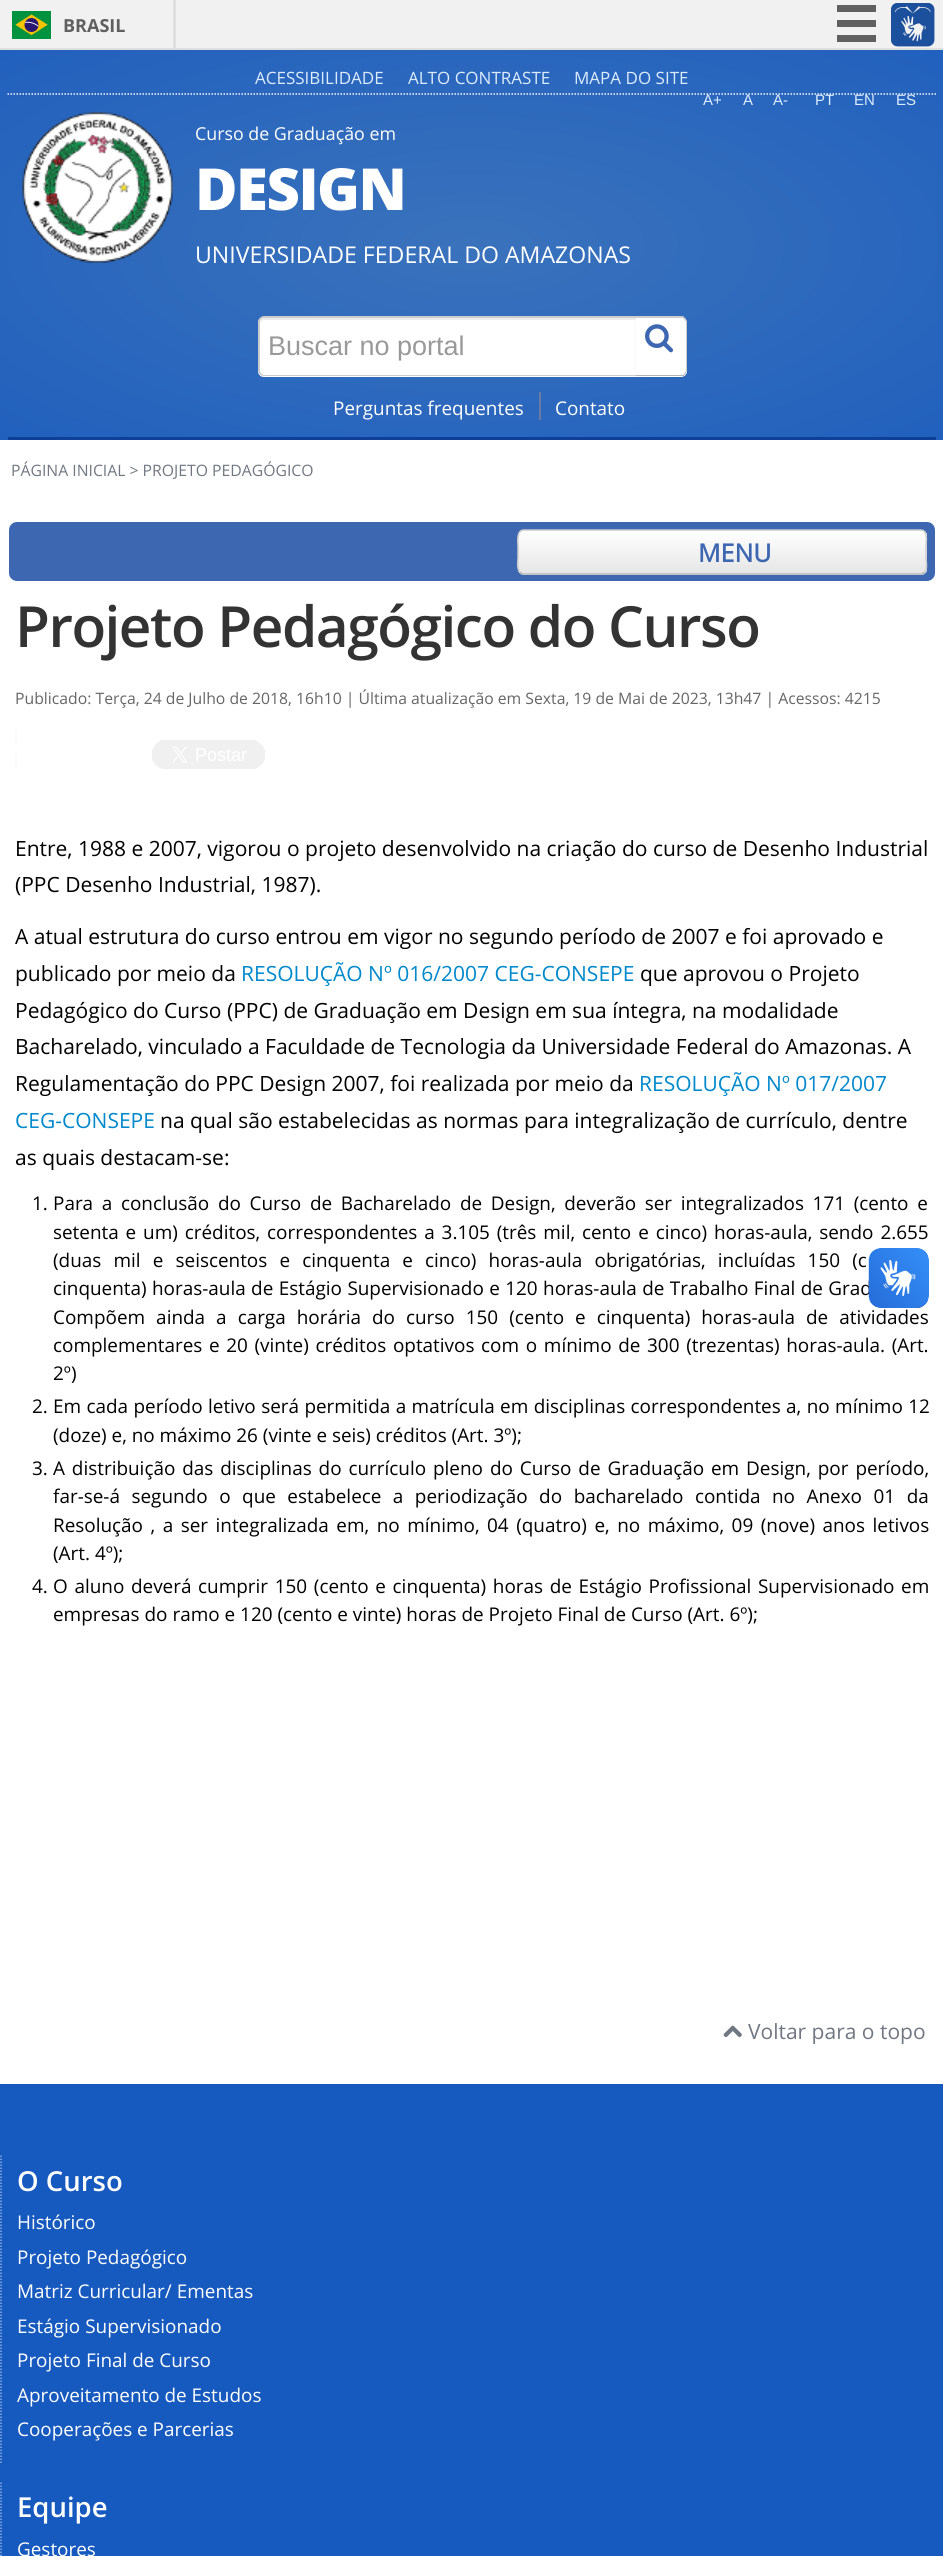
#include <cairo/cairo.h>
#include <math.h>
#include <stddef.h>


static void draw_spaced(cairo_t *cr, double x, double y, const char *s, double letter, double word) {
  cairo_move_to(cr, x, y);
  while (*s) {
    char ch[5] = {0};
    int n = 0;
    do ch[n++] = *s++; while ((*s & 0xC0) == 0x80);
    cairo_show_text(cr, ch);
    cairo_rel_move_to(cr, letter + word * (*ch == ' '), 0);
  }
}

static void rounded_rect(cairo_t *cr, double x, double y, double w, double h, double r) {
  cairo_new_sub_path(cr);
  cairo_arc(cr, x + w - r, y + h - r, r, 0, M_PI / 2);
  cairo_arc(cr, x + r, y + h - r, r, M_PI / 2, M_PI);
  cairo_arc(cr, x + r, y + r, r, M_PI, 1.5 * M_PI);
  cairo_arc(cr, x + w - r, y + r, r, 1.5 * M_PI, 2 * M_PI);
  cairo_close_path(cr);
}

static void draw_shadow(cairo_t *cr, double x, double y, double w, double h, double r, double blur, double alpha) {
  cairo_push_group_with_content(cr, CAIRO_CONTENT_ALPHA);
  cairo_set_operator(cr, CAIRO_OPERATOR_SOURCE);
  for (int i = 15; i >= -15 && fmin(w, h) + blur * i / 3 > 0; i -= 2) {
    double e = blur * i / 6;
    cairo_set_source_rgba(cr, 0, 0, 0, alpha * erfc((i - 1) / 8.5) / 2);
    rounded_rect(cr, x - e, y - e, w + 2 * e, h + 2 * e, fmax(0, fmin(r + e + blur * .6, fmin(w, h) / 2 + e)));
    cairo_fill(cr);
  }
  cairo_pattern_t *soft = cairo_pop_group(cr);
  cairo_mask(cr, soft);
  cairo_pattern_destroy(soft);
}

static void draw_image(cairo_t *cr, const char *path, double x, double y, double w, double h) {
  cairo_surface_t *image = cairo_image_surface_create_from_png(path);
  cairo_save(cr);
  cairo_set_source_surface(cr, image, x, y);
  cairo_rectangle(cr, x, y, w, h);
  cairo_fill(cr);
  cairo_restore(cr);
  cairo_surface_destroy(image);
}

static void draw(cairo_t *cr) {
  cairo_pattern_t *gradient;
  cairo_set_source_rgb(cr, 1, 1, 1);
  cairo_paint(cr);
  cairo_set_source_rgb(cr, 241 / 255.0, 241 / 255.0, 241 / 255.0);
  cairo_rectangle(cr, 0, 0, 943, 48);
  cairo_fill(cr);
  cairo_set_source_rgb(cr, 223 / 255.0, 223 / 255.0, 223 / 255.0);
  cairo_rectangle(cr, 0, 48, 943, 2);
  cairo_fill(cr);
  cairo_rectangle(cr, 173, 0, 3, 48);
  cairo_fill(cr);
  draw_image(cr, "images/1.png", 12, 11, 39, 28);
  cairo_set_source_rgb(cr, 96 / 255.0, 96 / 255.0, 96 / 255.0);
  cairo_rectangle(cr, 837, 5, 39, 7);
  cairo_fill(cr);
  cairo_rectangle(cr, 837, 20, 39, 7);
  cairo_fill(cr);
  cairo_rectangle(cr, 837, 35, 39, 7);
  cairo_fill(cr);
  draw_image(cr, "images/2.png", 891, 3, 44, 44);
  gradient = cairo_pattern_create_radial(0, 0, 0, 0, 0, 1);
  cairo_pattern_set_matrix(gradient, &(cairo_matrix_t){1.0 / 667, 0, 0, 1.0 / 276, -1.0 * 472 / 667, -1.0 * 245 / 276});
  cairo_pattern_add_color_stop_rgba(gradient, 0.01, 58 / 255.0, 114 / 255.0, 188 / 255.0, 1);
  cairo_pattern_add_color_stop_rgba(gradient, 1, 33 / 255.0, 96 / 255.0, 189 / 255.0, 1);
  cairo_set_source(cr, gradient);
  cairo_pattern_destroy(gradient);
  cairo_rectangle(cr, 0, 50, 943, 390);
  cairo_fill(cr);
  cairo_new_path(cr);
  cairo_move_to(cr, 7.5, 94);
  cairo_line_to(cr, 936, 94);
  cairo_set_source_rgb(cr, 246 / 255.0, 247 / 255.0, 248 / 255.0);
  cairo_set_line_width(cr, 1.5);
  cairo_set_dash(cr, (double[]){1.5, 1.5}, 2, 0);
  cairo_stroke(cr);
  draw_image(cr, "images/3.png", 22, 112, 151, 151);
  cairo_set_source_rgb(cr, 1, 1, 1);
  cairo_new_path(cr);
  cairo_move_to(cr, 264, 317);
  cairo_line_to(cr, 638, 317);
  cairo_line_to(cr, 638, 377);
  cairo_line_to(cr, 264, 377);
  cairo_curve_to(cr, 260.5, 377, 258, 374.5, 258, 371);
  cairo_line_to(cr, 258, 323);
  cairo_curve_to(cr, 258, 319.5, 260.5, 317, 264, 317);
  cairo_close_path(cr);
  cairo_fill(cr);
  cairo_set_source_rgb(cr, 236 / 255.0, 236 / 255.0, 236 / 255.0);
  cairo_new_path(cr);
  cairo_move_to(cr, 264, 320);
  cairo_line_to(cr, 638, 320);
  cairo_line_to(cr, 638, 318);
  cairo_line_to(cr, 265, 318);
  cairo_curve_to(cr, 262, 318, 260, 321, 260, 324);
  cairo_curve_to(cr, 260, 322, 262, 320, 264, 320);
  cairo_close_path(cr);
  cairo_fill(cr);
  cairo_set_source_rgb(cr, 204 / 255.0, 204 / 255.0, 204 / 255.0);
  cairo_set_fill_rule(cr, CAIRO_FILL_RULE_EVEN_ODD);
  cairo_new_path(cr);
  cairo_move_to(cr, 264, 316);
  cairo_line_to(cr, 638, 316);
  cairo_line_to(cr, 638, 376);
  cairo_line_to(cr, 264, 376);
  cairo_curve_to(cr, 261, 376, 258, 374, 258, 370);
  cairo_line_to(cr, 258, 322);
  cairo_curve_to(cr, 258, 319, 261, 316, 264, 316);
  cairo_close_path(cr);
  cairo_move_to(cr, 264, 318);
  cairo_line_to(cr, 638, 318);
  cairo_line_to(cr, 638, 375);
  cairo_line_to(cr, 264, 375);
  cairo_curve_to(cr, 262, 375, 260, 373, 260, 370);
  cairo_line_to(cr, 260, 322);
  cairo_curve_to(cr, 260, 320, 262, 318, 264, 318);
  cairo_close_path(cr);
  cairo_fill(cr);
  cairo_set_source_rgb(cr, 0, 0, 0);
  draw_shadow(cr, 636, 318, 51, 60, 6, 1.5, 0.05);
  cairo_set_source_rgb(cr, 1, 1, 1);
  cairo_new_path(cr);
  cairo_move_to(cr, 636, 317);
  cairo_line_to(cr, 681, 317);
  cairo_curve_to(cr, 684.5, 317, 687, 319.5, 687, 323);
  cairo_line_to(cr, 687, 371);
  cairo_curve_to(cr, 687, 374.5, 684.5, 377, 681, 377);
  cairo_line_to(cr, 636, 377);
  cairo_close_path(cr);
  cairo_fill(cr);
  cairo_set_source_rgb(cr, 204 / 255.0, 204 / 255.0, 204 / 255.0);
  cairo_set_fill_rule(cr, CAIRO_FILL_RULE_WINDING);
  cairo_new_path(cr);
  cairo_move_to(cr, 636, 318);
  cairo_line_to(cr, 681, 318);
  cairo_curve_to(cr, 682, 318, 683, 318, 684, 319);
  cairo_line_to(cr, 685, 318);
  cairo_line_to(cr, 683, 316);
  cairo_line_to(cr, 636, 316);
  cairo_close_path(cr);
  cairo_fill(cr);
  cairo_new_path(cr);
  cairo_move_to(cr, 684, 374);
  cairo_line_to(cr, 686, 371);
  cairo_line_to(cr, 686, 322);
  cairo_line_to(cr, 684, 319);
  cairo_line_to(cr, 685, 318);
  cairo_curve_to(cr, 686, 319, 687, 321, 687, 322);
  cairo_line_to(cr, 687, 370);
  cairo_curve_to(cr, 687, 372, 686, 374, 685, 375);
  cairo_close_path(cr);
  cairo_fill(cr);
  cairo_set_source_rgb(cr, 179 / 255.0, 179 / 255.0, 179 / 255.0);
  cairo_new_path(cr);
  cairo_move_to(cr, 636, 375);
  cairo_line_to(cr, 636, 376);
  cairo_line_to(cr, 681, 376);
  cairo_curve_to(cr, 682, 376, 684, 376, 685, 375);
  cairo_line_to(cr, 684, 374);
  cairo_curve_to(cr, 683, 375, 682, 375, 681, 375);
  cairo_close_path(cr);
  cairo_fill(cr);
  draw_image(cr, "images/4.png", 645, 324, 29, 29);
  cairo_set_source_rgb(cr, 15 / 255.0, 64 / 255.0, 152 / 255.0);
  cairo_rectangle(cr, 8, 437, 928, 3);
  cairo_fill(cr);
  cairo_set_source_rgb(cr, 104 / 255.0, 124 / 255.0, 161 / 255.0);
  cairo_rectangle(cr, 539, 392, 2, 28);
  cairo_fill(cr);
  cairo_set_source_rgb(cr, 62 / 255.0, 103 / 255.0, 177 / 255.0);
  rounded_rect(cr, 9, 522, 926, 59, 8);
  cairo_fill(cr);
  cairo_set_source_rgb(cr, 245 / 255.0, 245 / 255.0, 245 / 255.0);
  rounded_rect(cr, 518, 530, 409, 45, 6);
  cairo_fill(cr);
  cairo_save(cr);
  rounded_rect(cr, 518, 530, 409, 45, 6);
  cairo_clip(cr);
  gradient = cairo_pattern_create_linear(722, 531, 722, 573);
  cairo_pattern_add_color_stop_rgba(gradient, 0, 1, 1, 1, 1);
  cairo_pattern_add_color_stop_rgba(gradient, 1, 230 / 255.0, 230 / 255.0, 230 / 255.0, 1);
  cairo_set_source(cr, gradient);
  cairo_pattern_destroy(gradient);
  cairo_rectangle(cr, 518, 531, 409, 42);
  cairo_fill(cr);
  cairo_restore(cr);
  cairo_new_path(cr);
  cairo_move_to(cr, 924.5, 572);
  cairo_curve_to(cr, 923.5, 573, 922.5, 574, 921, 574);
  cairo_line_to(cr, 523.5, 574);
  cairo_curve_to(cr, 522, 574, 521, 573, 520, 572);
  cairo_set_source_rgb(cr, 179 / 255.0, 179 / 255.0, 179 / 255.0);
  cairo_set_dash(cr, NULL, 0, 0);
  cairo_stroke(cr);
  cairo_new_path(cr);
  cairo_move_to(cr, 520, 572);
  cairo_curve_to(cr, 516.5, 569, 518, 561, 518, 557.5);
  cairo_line_to(cr, 518, 546.5);
  cairo_curve_to(cr, 518, 542.5, 516, 530.5, 523.5, 530);
  cairo_line_to(cr, 921, 530);
  cairo_curve_to(cr, 928.5, 530.5, 926, 542.5, 926, 546.5);
  cairo_line_to(cr, 926, 557.5);
  cairo_curve_to(cr, 926, 561, 928, 569, 924.5, 572);
  cairo_set_source_rgb(cr, 204 / 255.0, 204 / 255.0, 204 / 255.0);
  cairo_stroke(cr);
  cairo_new_path(cr);
  cairo_move_to(cr, 16, 727.5);
  cairo_line_to(cr, 16, 772.5);
  cairo_set_source_rgb(cr, 249 / 255.0, 249 / 255.0, 249 / 255.0);
  cairo_set_dash(cr, (double[]){1.5, 1.5}, 2, 0);
  cairo_stroke(cr);
  draw_image(cr, "images/5.png", 152, 740, 113, 29);
  cairo_set_source_rgb(cr, 22 / 255.0, 89 / 255.0, 191 / 255.0);
  cairo_rectangle(cr, 0, 2084, 943, 472);
  cairo_fill(cr);
  draw_image(cr, "images/6.png", 723, 2025, 19, 13);
  cairo_new_path(cr);
  cairo_move_to(cr, 1, 2155.5);
  cairo_line_to(cr, 1, 2463);
  cairo_set_source_rgb(cr, 139 / 255.0, 172 / 255.0, 223 / 255.0);
  cairo_stroke(cr);
  cairo_new_path(cr);
  cairo_move_to(cr, 1, 2482.5);
  cairo_line_to(cr, 1, 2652);
  cairo_stroke(cr);
  cairo_select_font_face(cr, "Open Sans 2", CAIRO_FONT_SLANT_NORMAL, CAIRO_FONT_WEIGHT_BOLD);
  cairo_set_font_size(cr, 18);
  cairo_set_source_rgb(cr, 96 / 255.0, 96 / 255.0, 96 / 255.0);
  cairo_move_to(cr, 63, 32);
  cairo_show_text(cr, "BRASIL");
  cairo_select_font_face(cr, "Open Sans", CAIRO_FONT_SLANT_NORMAL, CAIRO_FONT_WEIGHT_NORMAL);
  cairo_set_font_size(cr, 17);
  cairo_set_source_rgb(cr, 220 / 255.0, 236 / 255.0, 1);
  cairo_move_to(cr, 255, 84);
  cairo_show_text(cr, "ACESSIBILIDADE");
  cairo_move_to(cr, 408, 84);
  cairo_show_text(cr, "ALTO CONTRASTE");
  cairo_move_to(cr, 574, 84);
  cairo_show_text(cr, "MAPA DO SITE");
  cairo_select_font_face(cr, "Liberation Sans", CAIRO_FONT_SLANT_NORMAL, CAIRO_FONT_WEIGHT_NORMAL);
  cairo_set_font_size(cr, 15);
  cairo_move_to(cr, 703, 105);
  cairo_show_text(cr, "A+");
  cairo_move_to(cr, 743, 105);
  cairo_show_text(cr, "A");
  cairo_move_to(cr, 773, 105);
  cairo_show_text(cr, "A-");
  cairo_move_to(cr, 815, 105);
  cairo_show_text(cr, "PT");
  cairo_move_to(cr, 854, 105);
  cairo_show_text(cr, "EN");
  cairo_move_to(cr, 896, 105);
  cairo_show_text(cr, "ES");
  cairo_select_font_face(cr, "Open Sans", CAIRO_FONT_SLANT_NORMAL, CAIRO_FONT_WEIGHT_NORMAL);
  cairo_set_font_size(cr, 17.8);
  cairo_set_source_rgb(cr, 1, 1, 1);
  cairo_move_to(cr, 195, 140);
  cairo_show_text(cr, "Curso de Graduação em");
  cairo_select_font_face(cr, "Open Sans ExtraBold", CAIRO_FONT_SLANT_NORMAL, CAIRO_FONT_WEIGHT_NORMAL);
  cairo_set_font_size(cr, 58);
  draw_spaced(cr, 195, 210, "DESIGN", -1.5, 0);
  cairo_select_font_face(cr, "Open Sans", CAIRO_FONT_SLANT_NORMAL, CAIRO_FONT_WEIGHT_NORMAL);
  cairo_set_font_size(cr, 23.1);
  cairo_move_to(cr, 195, 263);
  cairo_show_text(cr, "UNIVERSIDADE FEDERAL DO AMAZONAS");
  cairo_select_font_face(cr, "Liberation Sans", CAIRO_FONT_SLANT_NORMAL, CAIRO_FONT_WEIGHT_NORMAL);
  cairo_set_font_size(cr, 27);
  cairo_set_source_rgb(cr, 153 / 255.0, 153 / 255.0, 153 / 255.0);
  cairo_move_to(cr, 268, 355);
  cairo_show_text(cr, "Buscar no portal");
  cairo_select_font_face(cr, "Open Sans", CAIRO_FONT_SLANT_NORMAL, CAIRO_FONT_WEIGHT_NORMAL);
  cairo_set_font_size(cr, 18.9);
  cairo_set_source_rgb(cr, 1, 1, 1);
  cairo_move_to(cr, 333, 415);
  cairo_show_text(cr, "Perguntas frequentes");
  cairo_move_to(cr, 555, 415);
  cairo_show_text(cr, "Contato");
  cairo_set_font_size(cr, 15.75);
  cairo_set_source_rgb(cr, 113 / 255.0, 119 / 255.0, 130 / 255.0);
  cairo_move_to(cr, 11, 476);
  cairo_show_text(cr, "PÁGINA INICIAL > PROJETO PEDAGÓGICO");
  cairo_select_font_face(cr, "Open Sans", CAIRO_FONT_SLANT_NORMAL, CAIRO_FONT_WEIGHT_BOLD);
  cairo_set_font_size(cr, 25);
  cairo_set_source_rgb(cr, 62 / 255.0, 103 / 255.0, 177 / 255.0);
  cairo_move_to(cr, 698, 562);
  cairo_show_text(cr, "MENU");
  cairo_select_font_face(cr, "Open Sans SemiBold", CAIRO_FONT_SLANT_NORMAL, CAIRO_FONT_WEIGHT_NORMAL);
  cairo_set_font_size(cr, 56.75);
  cairo_set_source_rgb(cr, 51 / 255.0, 51 / 255.0, 51 / 255.0);
  draw_spaced(cr, 15, 647, "Projeto Pedagógico do Curso", -1.5, 0);
  cairo_select_font_face(cr, "Open Sans", CAIRO_FONT_SLANT_NORMAL, CAIRO_FONT_WEIGHT_NORMAL);
  cairo_set_font_size(cr, 15.75);
  cairo_set_source_rgb(cr, 102 / 255.0, 102 / 255.0, 102 / 255.0);
  cairo_move_to(cr, 15, 704);
  cairo_show_text(cr, "Publicado: Terça, 24 de Julho de 2018, 16h10 | Última atualização em Sexta, 19 de Mai de 2023, 13h47 | Acessos: 4215");
  cairo_set_font_size(cr, 21);
  cairo_set_source_rgb(cr, 0, 0, 0);
  cairo_move_to(cr, 15, 856);
  cairo_show_text(cr, "Entre, 1988 e 2007, vigorou o projeto desenvolvido na criação do curso de Desenho Industrial");
  cairo_move_to(cr, 15, 892);
  cairo_show_text(cr, "(PPC Desenho Industrial, 1987).");
  cairo_move_to(cr, 15, 944);
  cairo_show_text(cr, "A atual estrutura do curso entrou em vigor no segundo período de 2007 e foi aprovado e");
  cairo_move_to(cr, 15, 981);
  cairo_show_text(cr, "publicado por meio da");
  cairo_set_source_rgb(cr, 0, 136 / 255.0, 204 / 255.0);
  cairo_move_to(cr, 241, 981);
  cairo_show_text(cr, "RESOLUÇÃO Nº 016/2007 CEG-CONSEPE");
  cairo_set_source_rgb(cr, 0, 0, 0);
  cairo_move_to(cr, 640, 981);
  cairo_show_text(cr, "que aprovou o Projeto");
  cairo_move_to(cr, 15, 1018);
  cairo_show_text(cr, "Pedagógico do Curso (PPC) de Graduação em Design em sua íntegra, na modalidade");
  cairo_move_to(cr, 15, 1054);
  cairo_show_text(cr, "Bacharelado, vinculado a Faculdade de Tecnologia da Universidade Federal do Amazonas. A");
  cairo_move_to(cr, 15, 1091);
  cairo_show_text(cr, "Regulamentação do PPC Design 2007, foi realizada por meio da");
  cairo_set_source_rgb(cr, 0, 136 / 255.0, 204 / 255.0);
  cairo_move_to(cr, 639, 1091);
  cairo_show_text(cr, "RESOLUÇÃO Nº 017/2007");
  cairo_move_to(cr, 15, 1128);
  cairo_show_text(cr, "CEG-CONSEPE");
  cairo_set_source_rgb(cr, 0, 0, 0);
  cairo_move_to(cr, 160, 1128);
  cairo_show_text(cr, "na qual são estabelecidas as normas para integralização de currículo, dentre");
  cairo_move_to(cr, 15, 1165);
  cairo_show_text(cr, "as quais destacam-se:");
  cairo_set_font_size(cr, 18.9);
  cairo_move_to(cr, 32, 1210);
  cairo_show_text(cr, "1.");
  draw_spaced(cr, 53, 1210, "Para a conclusão do Curso de Bacharelado de Design, deverão ser integralizados 171 (cento e", 0, 3.75);
  draw_spaced(cr, 53, 1239, "setenta e um) créditos, correspondentes a 3.105 (três mil, cento e cinco) horas-aula, sendo 2.655", 0, 2);
  draw_spaced(cr, 53, 1267, "(duas mil e seiscentos e cinquenta e cinco) horas-aula obrigatórias, incluídas 150 (c", 0, 7.25);
  draw_spaced(cr, 53, 1295, "cinquenta) horas-aula de Estágio Supervisionado e 120 horas-aula de Trabalho Final de Grad", 0, 0.5);
  draw_spaced(cr, 53, 1324, "Compõem ainda a carga horária do curso 150 (cento e cinquenta) horas-aula de atividades", 0, 6.1);
  draw_spaced(cr, 53, 1352, "complementares e 20 (vinte) créditos optativos com o mínimo de 300 (trezentas) horas-aula. (Art.", 0, 1.75);
  cairo_move_to(cr, 53, 1380);
  cairo_show_text(cr, "2º)");
  cairo_move_to(cr, 32, 1413);
  cairo_show_text(cr, "2.");
  draw_spaced(cr, 53, 1413, "Em cada período letivo será permitida a matrícula em disciplinas correspondentes a, no mínimo 12", 0, 0.5);
  cairo_move_to(cr, 53, 1442);
  cairo_show_text(cr, "(doze) e, no máximo 26 (vinte e seis) créditos (Art. 3º);");
  cairo_move_to(cr, 32, 1475);
  cairo_show_text(cr, "3.");
  draw_spaced(cr, 53, 1475, "A distribuição das disciplinas do currículo pleno do Curso de Graduação em Design, por período,", 0, 2);
  draw_spaced(cr, 53, 1503, "far-se-á segundo o que estabelece a periodização do bacharelado contida no Anexo 01 da", 0, 6.6);
  draw_spaced(cr, 53, 1532, "Resolução , a ser integralizada em, no mínimo, 04 (quatro) e, no máximo, 09 (nove) anos letivos", 0, 2.6);
  cairo_move_to(cr, 53, 1560);
  cairo_show_text(cr, "(Art. 4º);");
  cairo_move_to(cr, 32, 1593);
  cairo_show_text(cr, "4.");
  draw_spaced(cr, 53, 1593, "O aluno deverá cumprir 150 (cento e cinquenta) horas de Estágio Profissional Supervisionado em", 0, 1.75);
  cairo_move_to(cr, 53, 1621);
  cairo_show_text(cr, "empresas do ramo e 120 (cento e vinte) horas de Projeto Final de Curso (Art. 6º);");
  cairo_set_font_size(cr, 21);
  cairo_set_source_rgb(cr, 113 / 255.0, 119 / 255.0, 130 / 255.0);
  cairo_move_to(cr, 748, 2039);
  cairo_show_text(cr, "Voltar para o topo");
  cairo_select_font_face(cr, "Open Sans SemiBold", CAIRO_FONT_SLANT_NORMAL, CAIRO_FONT_WEIGHT_NORMAL);
  cairo_set_font_size(cr, 27.5);
  cairo_set_source_rgb(cr, 1, 1, 1);
  cairo_move_to(cr, 17, 2191);
  cairo_show_text(cr, "O Curso");
  cairo_select_font_face(cr, "Open Sans", CAIRO_FONT_SLANT_NORMAL, CAIRO_FONT_WEIGHT_NORMAL);
  cairo_set_font_size(cr, 18.9);
  cairo_move_to(cr, 17, 2229);
  cairo_show_text(cr, "Histórico");
  cairo_move_to(cr, 17, 2264);
  cairo_show_text(cr, "Projeto Pedagógico");
  cairo_move_to(cr, 17, 2298);
  cairo_show_text(cr, "Matriz Curricular/ Ementas");
  cairo_move_to(cr, 17, 2333);
  cairo_show_text(cr, "Estágio Supervisionado");
  cairo_move_to(cr, 17, 2367);
  cairo_show_text(cr, "Projeto Final de Curso");
  cairo_move_to(cr, 17, 2402);
  cairo_show_text(cr, "Aproveitamento de Estudos");
  cairo_move_to(cr, 17, 2436);
  cairo_show_text(cr, "Cooperações e Parcerias");
  cairo_select_font_face(cr, "Open Sans SemiBold", CAIRO_FONT_SLANT_NORMAL, CAIRO_FONT_WEIGHT_NORMAL);
  cairo_set_font_size(cr, 27.5);
  cairo_move_to(cr, 17, 2517);
  cairo_show_text(cr, "Equipe");
  cairo_select_font_face(cr, "Open Sans", CAIRO_FONT_SLANT_NORMAL, CAIRO_FONT_WEIGHT_NORMAL);
  cairo_set_font_size(cr, 18.9);
  cairo_move_to(cr, 17, 2556);
  cairo_show_text(cr, "Gestores");
  draw_image(cr, "images/7.png", 868, 1248, 61, 60);
  draw_image(cr, "images/8.png", 869, 1248, 60, 60);
}

int main(void) {
  cairo_surface_t *surface = cairo_image_surface_create(CAIRO_FORMAT_RGB24, 943, 2556);
  cairo_t *cr = cairo_create(surface);
  cairo_font_options_t *options = cairo_font_options_create();
  cairo_font_options_set_hint_metrics(options, CAIRO_HINT_METRICS_OFF);
  cairo_font_options_set_hint_style(options, CAIRO_HINT_STYLE_NONE);
  cairo_set_font_options(cr, options);
  cairo_set_miter_limit(cr, 4);
  draw(cr);
  cairo_surface_write_to_png(surface, "out.png");
  cairo_font_options_destroy(options);
  cairo_destroy(cr);
  cairo_surface_destroy(surface);
  return 0;
}
